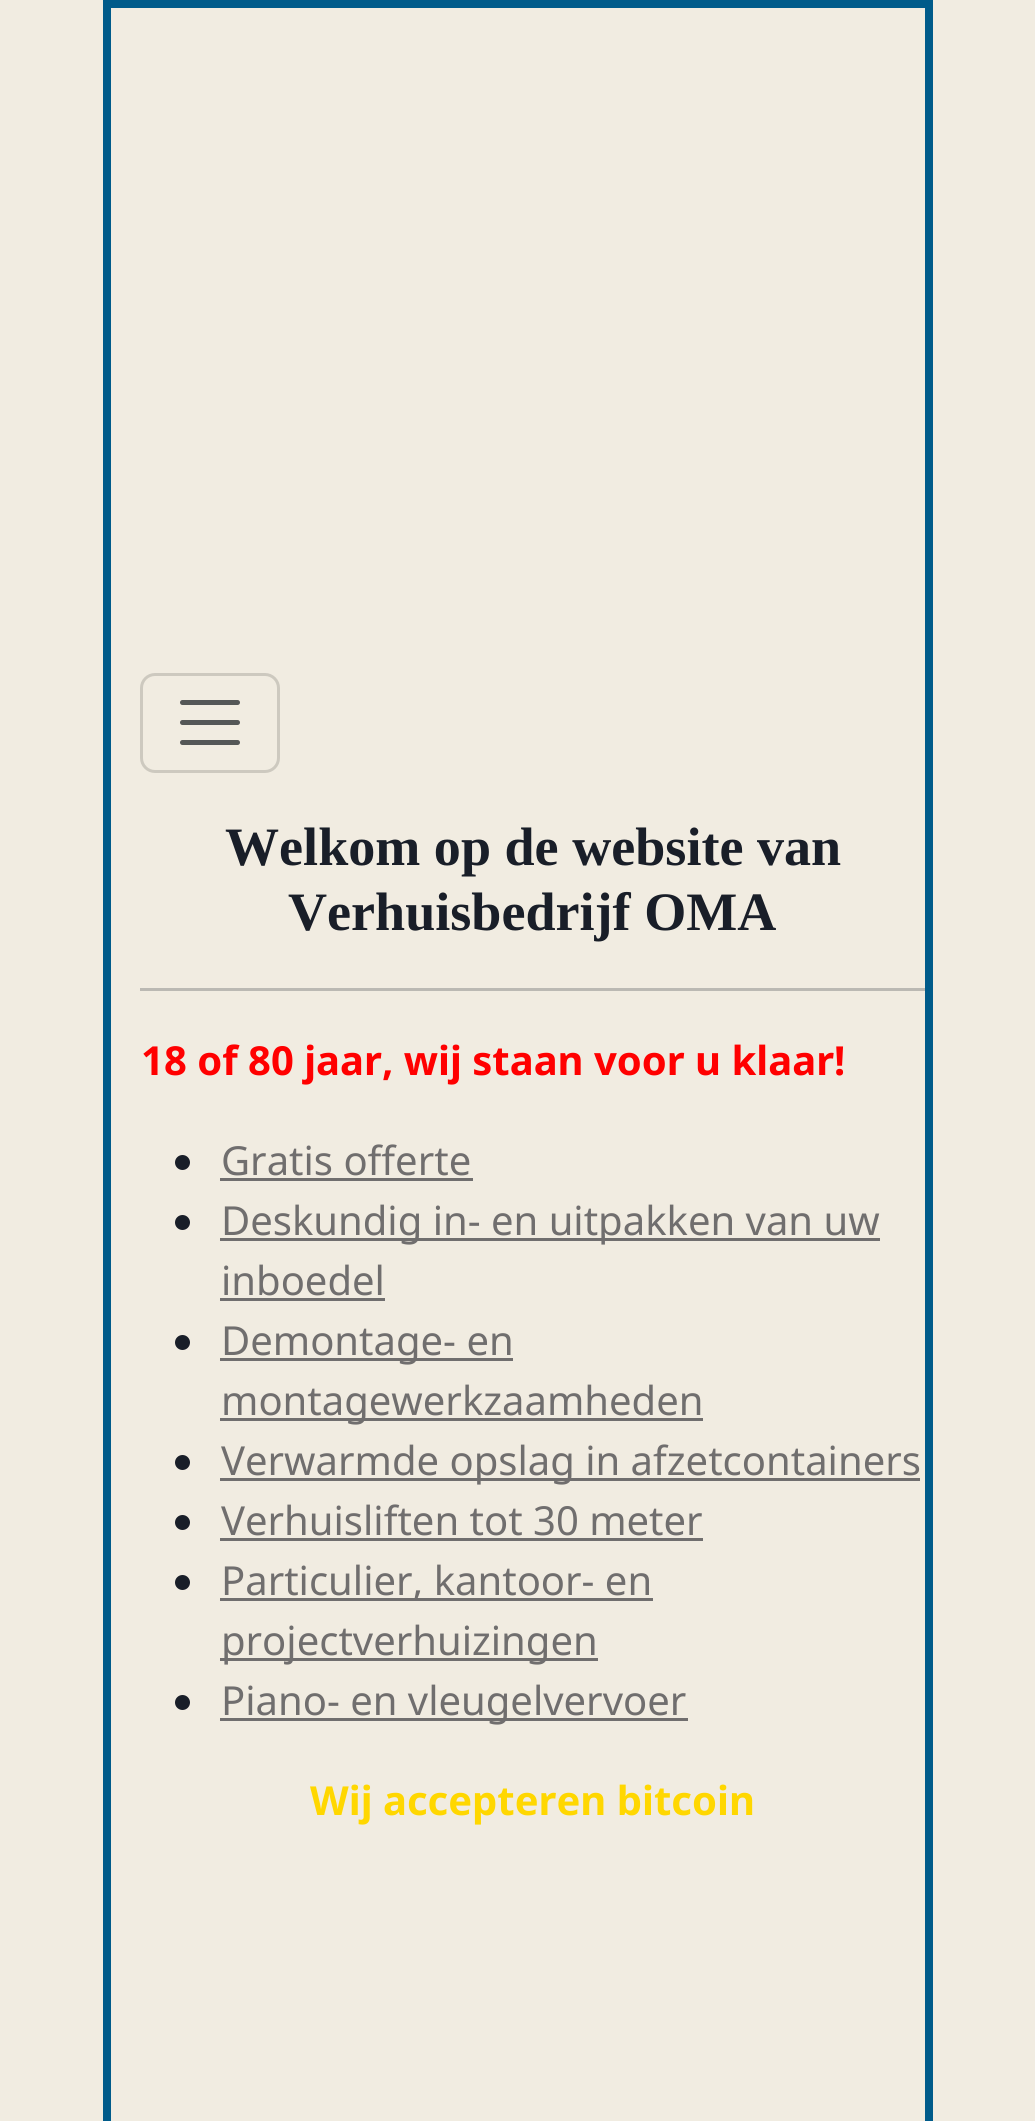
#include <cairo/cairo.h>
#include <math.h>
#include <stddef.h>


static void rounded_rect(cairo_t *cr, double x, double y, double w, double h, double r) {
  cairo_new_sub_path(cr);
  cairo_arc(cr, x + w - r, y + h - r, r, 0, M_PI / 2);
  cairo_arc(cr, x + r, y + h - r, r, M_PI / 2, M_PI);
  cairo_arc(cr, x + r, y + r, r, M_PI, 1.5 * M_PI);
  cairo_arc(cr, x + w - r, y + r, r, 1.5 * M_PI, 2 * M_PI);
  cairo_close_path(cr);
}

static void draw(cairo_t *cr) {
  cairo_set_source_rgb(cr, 241 / 255.0, 236 / 255.0, 225 / 255.0);
  cairo_paint(cr);
  cairo_rectangle(cr, 107, 4, 822, 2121);
  cairo_set_source_rgb(cr, 0, 91 / 255.0, 138 / 255.0);
  cairo_set_line_width(cr, 8);
  cairo_stroke(cr);
  rounded_rect(cr, 141.5, 674.5, 137, 97, 13.5);
  cairo_set_source_rgb(cr, 205 / 255.0, 201 / 255.0, 191 / 255.0);
  cairo_set_line_width(cr, 3);
  cairo_stroke(cr);
  cairo_new_path(cr);
  cairo_move_to(cr, 182.5, 702.5);
  cairo_line_to(cr, 237.5, 702.5);
  cairo_move_to(cr, 182.5, 722.5);
  cairo_line_to(cr, 237.5, 722.5);
  cairo_move_to(cr, 182.5, 742.5);
  cairo_line_to(cr, 237.5, 742.5);
  cairo_set_source_rgb(cr, 85 / 255.0, 87 / 255.0, 87 / 255.0);
  cairo_set_line_width(cr, 5);
  cairo_set_line_cap(cr, CAIRO_LINE_CAP_ROUND);
  cairo_stroke(cr);
  cairo_set_source_rgb(cr, 187 / 255.0, 185 / 255.0, 179 / 255.0);
  cairo_rectangle(cr, 140, 988, 785, 3);
  cairo_fill(cr);
  cairo_set_source_rgb(cr, 25 / 255.0, 30 / 255.0, 40 / 255.0);
  cairo_arc(cr, 182.5, 1162.5, 7.5, 0, 2 * M_PI);
  cairo_fill(cr);
  cairo_set_source_rgb(cr, 112 / 255.0, 110 / 255.0, 110 / 255.0);
  cairo_rectangle(cr, 220, 1178, 253, 3);
  cairo_fill(cr);
  cairo_set_source_rgb(cr, 25 / 255.0, 30 / 255.0, 40 / 255.0);
  cairo_arc(cr, 182.5, 1222.5, 7.5, 0, 2 * M_PI);
  cairo_fill(cr);
  cairo_set_source_rgb(cr, 112 / 255.0, 110 / 255.0, 110 / 255.0);
  cairo_rectangle(cr, 220, 1238, 660, 3);
  cairo_fill(cr);
  cairo_rectangle(cr, 220, 1298, 165, 3);
  cairo_fill(cr);
  cairo_set_source_rgb(cr, 25 / 255.0, 30 / 255.0, 40 / 255.0);
  cairo_arc(cr, 182.5, 1342.5, 7.5, 0, 2 * M_PI);
  cairo_fill(cr);
  cairo_set_source_rgb(cr, 112 / 255.0, 110 / 255.0, 110 / 255.0);
  cairo_rectangle(cr, 220, 1358, 293, 3);
  cairo_fill(cr);
  cairo_rectangle(cr, 220, 1418, 483, 3);
  cairo_fill(cr);
  cairo_set_source_rgb(cr, 25 / 255.0, 30 / 255.0, 40 / 255.0);
  cairo_arc(cr, 182.5, 1462.5, 7.5, 0, 2 * M_PI);
  cairo_fill(cr);
  cairo_set_source_rgb(cr, 112 / 255.0, 110 / 255.0, 110 / 255.0);
  cairo_rectangle(cr, 220, 1478, 700, 3);
  cairo_fill(cr);
  cairo_set_source_rgb(cr, 25 / 255.0, 30 / 255.0, 40 / 255.0);
  cairo_arc(cr, 182.5, 1522.5, 7.5, 0, 2 * M_PI);
  cairo_fill(cr);
  cairo_set_source_rgb(cr, 112 / 255.0, 110 / 255.0, 110 / 255.0);
  cairo_rectangle(cr, 220, 1538, 483, 3);
  cairo_fill(cr);
  cairo_set_source_rgb(cr, 25 / 255.0, 30 / 255.0, 40 / 255.0);
  cairo_arc(cr, 182.5, 1582.5, 7.5, 0, 2 * M_PI);
  cairo_fill(cr);
  cairo_set_source_rgb(cr, 112 / 255.0, 110 / 255.0, 110 / 255.0);
  cairo_rectangle(cr, 220, 1598, 433, 3);
  cairo_fill(cr);
  cairo_rectangle(cr, 220, 1658, 378, 3);
  cairo_fill(cr);
  cairo_set_source_rgb(cr, 25 / 255.0, 30 / 255.0, 40 / 255.0);
  cairo_arc(cr, 182.5, 1702.5, 7.5, 0, 2 * M_PI);
  cairo_fill(cr);
  cairo_set_source_rgb(cr, 112 / 255.0, 110 / 255.0, 110 / 255.0);
  cairo_rectangle(cr, 220, 1718, 468, 3);
  cairo_fill(cr);
  cairo_select_font_face(cr, "Liberation Serif", CAIRO_FONT_SLANT_NORMAL, CAIRO_FONT_WEIGHT_BOLD);
  cairo_set_font_size(cr, 54.1);
  cairo_set_source_rgb(cr, 25 / 255.0, 30 / 255.0, 40 / 255.0);
  cairo_move_to(cr, 225, 865);
  cairo_show_text(cr, "Welkom op de website van");
  cairo_move_to(cr, 288, 930);
  cairo_show_text(cr, "Verhuisbedrijf OMA");
  cairo_select_font_face(cr, "Noto Sans", CAIRO_FONT_SLANT_NORMAL, CAIRO_FONT_WEIGHT_BOLD);
  cairo_set_font_size(cr, 40);
  cairo_set_source_rgb(cr, 1, 0, 0);
  cairo_move_to(cr, 141, 1075);
  cairo_show_text(cr, "18 of 80 jaar, wij staan voor u klaar!");
  cairo_select_font_face(cr, "Noto Sans", CAIRO_FONT_SLANT_NORMAL, CAIRO_FONT_WEIGHT_NORMAL);
  cairo_set_source_rgb(cr, 112 / 255.0, 110 / 255.0, 110 / 255.0);
  cairo_move_to(cr, 221, 1175);
  cairo_show_text(cr, "Gratis offerte");
  cairo_move_to(cr, 221, 1235);
  cairo_show_text(cr, "Deskundig in- en uitpakken van uw");
  cairo_move_to(cr, 221, 1295);
  cairo_show_text(cr, "inboedel");
  cairo_move_to(cr, 221, 1355);
  cairo_show_text(cr, "Demontage- en");
  cairo_move_to(cr, 221, 1415);
  cairo_show_text(cr, "montagewerkzaamheden");
  cairo_move_to(cr, 221, 1475);
  cairo_show_text(cr, "Verwarmde opslag in afzetcontainers");
  cairo_move_to(cr, 221, 1535);
  cairo_show_text(cr, "Verhuisliften tot 30 meter");
  cairo_move_to(cr, 221, 1595);
  cairo_show_text(cr, "Particulier, kantoor- en");
  cairo_move_to(cr, 221, 1655);
  cairo_show_text(cr, "projectverhuizingen");
  cairo_move_to(cr, 221, 1715);
  cairo_show_text(cr, "Piano- en vleugelvervoer");
  cairo_select_font_face(cr, "Noto Sans", CAIRO_FONT_SLANT_NORMAL, CAIRO_FONT_WEIGHT_BOLD);
  cairo_set_source_rgb(cr, 1, 215 / 255.0, 0);
  cairo_move_to(cr, 310, 1815);
  cairo_show_text(cr, "Wij accepteren bitcoin");
}

int main(void) {
  cairo_surface_t *surface = cairo_image_surface_create(CAIRO_FORMAT_RGB24, 1035, 2121);
  cairo_t *cr = cairo_create(surface);
  cairo_font_options_t *options = cairo_font_options_create();
  cairo_font_options_set_hint_metrics(options, CAIRO_HINT_METRICS_OFF);
  cairo_font_options_set_hint_style(options, CAIRO_HINT_STYLE_NONE);
  cairo_set_font_options(cr, options);
  cairo_set_miter_limit(cr, 4);
  draw(cr);
  cairo_surface_write_to_png(surface, "out.png");
  cairo_font_options_destroy(options);
  cairo_destroy(cr);
  cairo_surface_destroy(surface);
  return 0;
}
